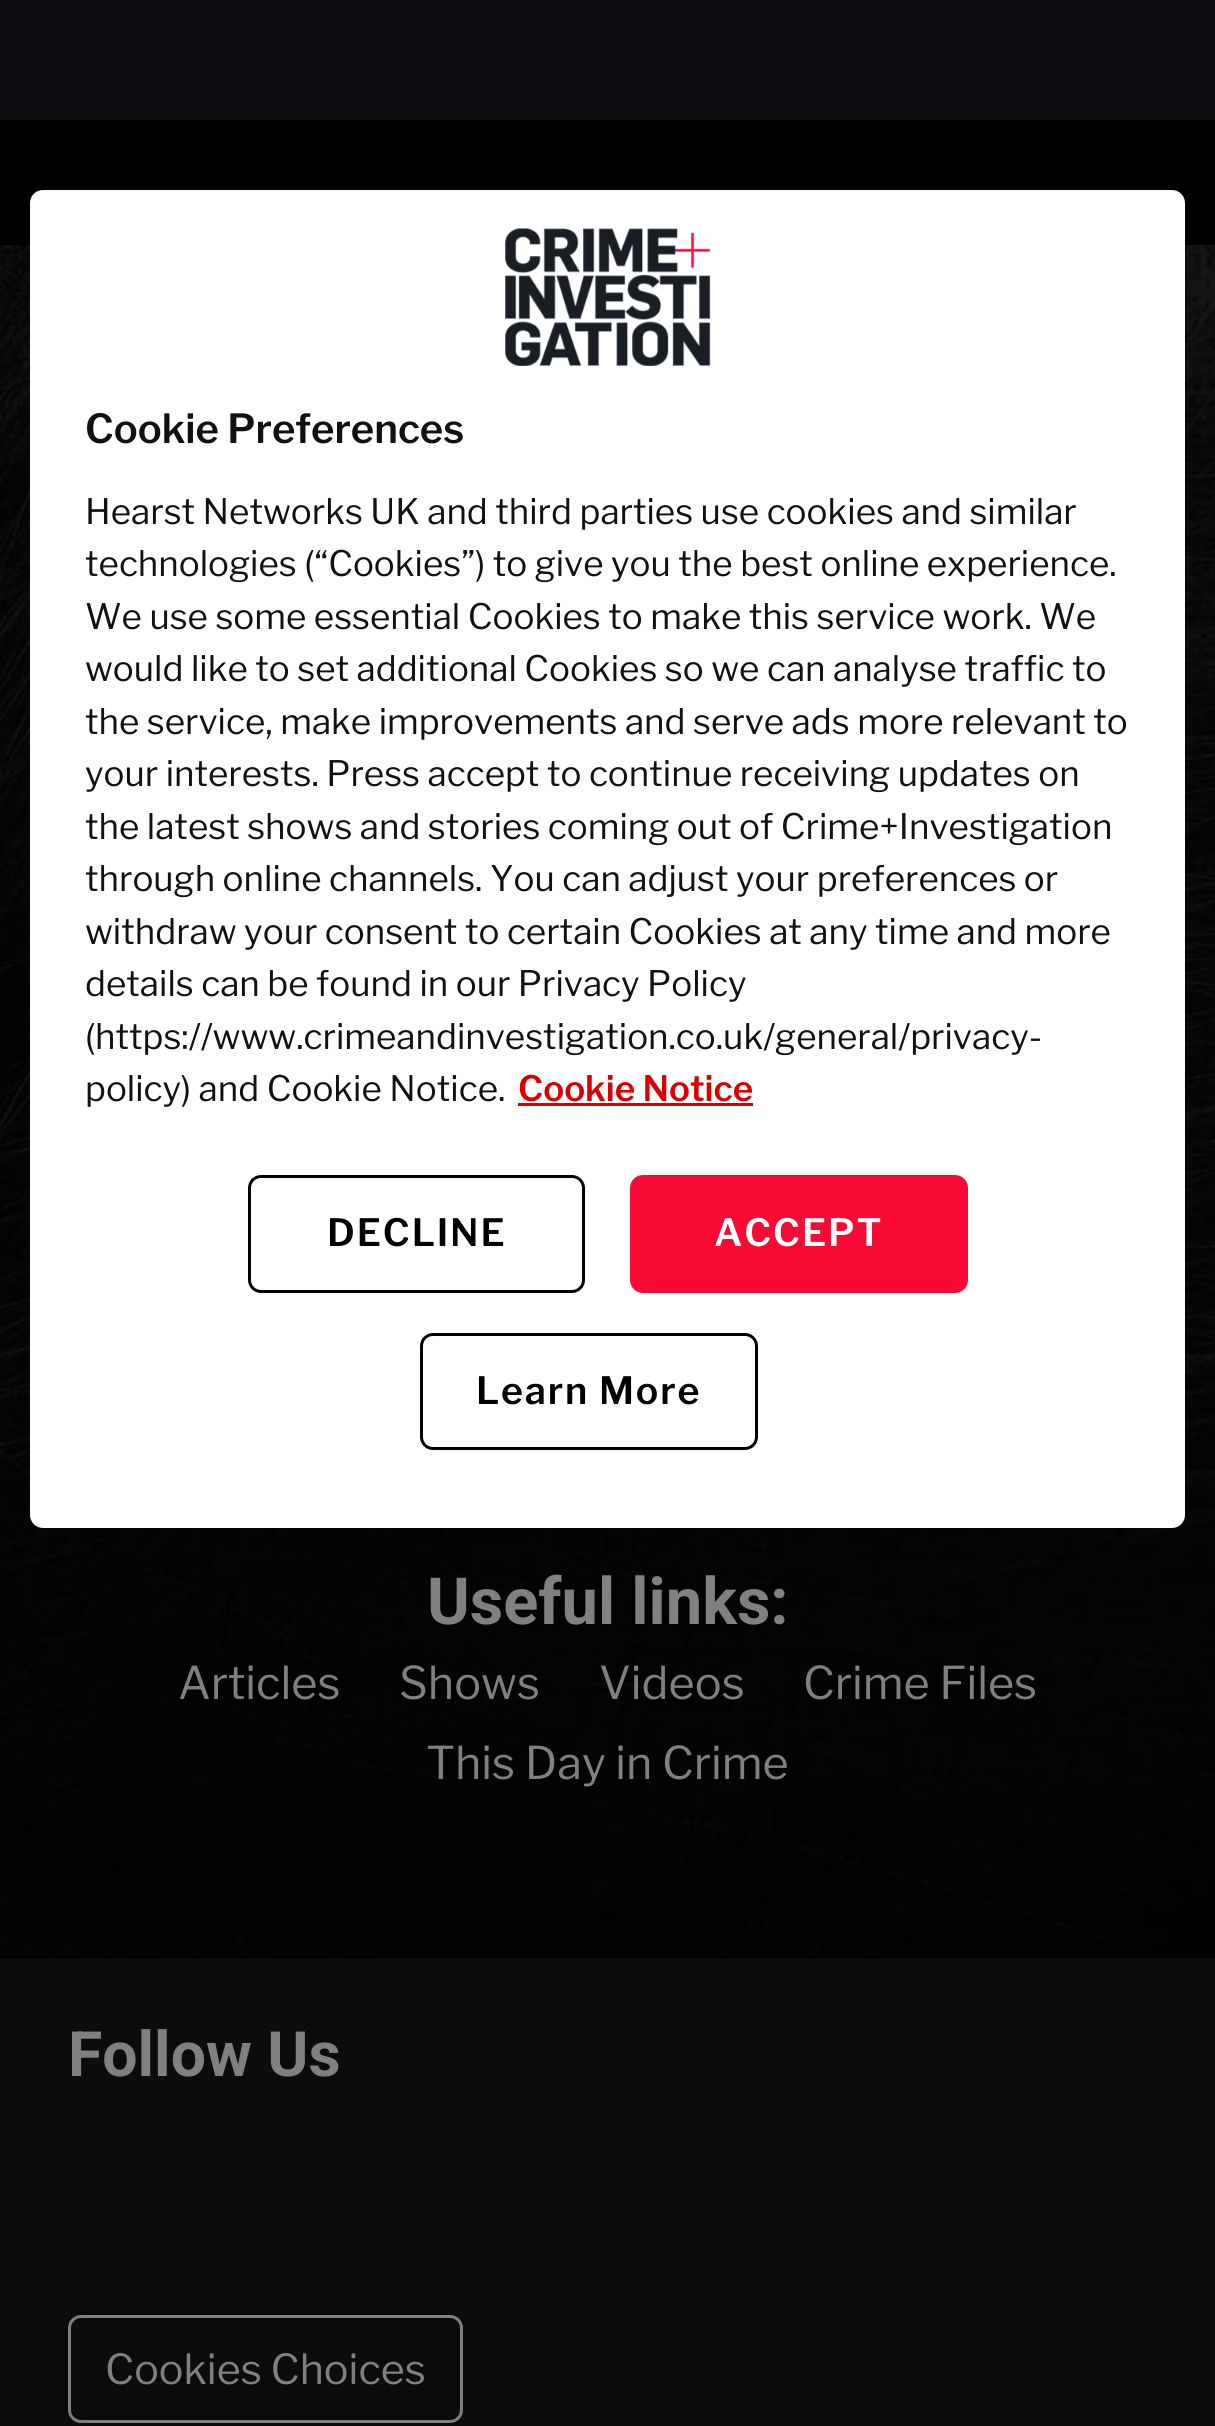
#include <cairo/cairo.h>
#include <math.h>
#include <stddef.h>


static void draw_spaced(cairo_t *cr, double x, double y, const char *s, double letter, double word) {
  cairo_move_to(cr, x, y);
  while (*s) {
    char ch[5] = {0};
    int n = 0;
    do ch[n++] = *s++; while ((*s & 0xC0) == 0x80);
    cairo_show_text(cr, ch);
    cairo_rel_move_to(cr, letter + word * (*ch == ' '), 0);
  }
}

static void rounded_rect(cairo_t *cr, double x, double y, double w, double h, double r) {
  cairo_new_sub_path(cr);
  cairo_arc(cr, x + w - r, y + h - r, r, 0, M_PI / 2);
  cairo_arc(cr, x + r, y + h - r, r, M_PI / 2, M_PI);
  cairo_arc(cr, x + r, y + r, r, M_PI, 1.5 * M_PI);
  cairo_arc(cr, x + w - r, y + r, r, 1.5 * M_PI, 2 * M_PI);
  cairo_close_path(cr);
}

static void draw_image(cairo_t *cr, const char *path, double x, double y, double w, double h) {
  cairo_surface_t *image = cairo_image_surface_create_from_png(path);
  cairo_save(cr);
  cairo_set_source_surface(cr, image, x, y);
  cairo_rectangle(cr, x, y, w, h);
  cairo_fill(cr);
  cairo_restore(cr);
  cairo_surface_destroy(image);
}

static void draw(cairo_t *cr) {
  cairo_set_source_rgb(cr, 0, 0, 0);
  cairo_paint(cr);
  draw_image(cr, "images/2.png", 0, 245, 1215, 1713);
  cairo_set_source_rgb(cr, 1, 1, 1);
  rounded_rect(cr, 30, 190, 1155, 1338, 13);
  cairo_fill(cr);
  draw_image(cr, "images/1.png", 505, 228, 206, 138);
  cairo_set_source_rgb(cr, 219 / 255.0, 0, 0);
  cairo_rectangle(cr, 518, 1103, 235, 3);
  cairo_fill(cr);
  rounded_rect(cr, 249.5, 1176.5, 334, 115, 11.5);
  cairo_set_source_rgb(cr, 0, 0, 0);
  cairo_set_line_width(cr, 3);
  cairo_stroke(cr);
  cairo_set_source_rgb(cr, 249 / 255.0, 10 / 255.0, 52 / 255.0);
  rounded_rect(cr, 631.5, 1176.5, 335, 115, 11.5);
  cairo_fill_preserve(cr);
  cairo_stroke(cr);
  rounded_rect(cr, 421.5, 1334.5, 335, 114, 11.5);
  cairo_set_source_rgb(cr, 0, 0, 0);
  cairo_stroke(cr);
  cairo_set_source_rgb(cr, 13 / 255.0, 15 / 255.0, 18 / 255.0);
  cairo_rectangle(cr, 0, 0, 1215, 120);
  cairo_fill(cr);
  cairo_set_source_rgb(cr, 12 / 255.0, 12 / 255.0, 14 / 255.0);
  cairo_rectangle(cr, 0, 1958, 1215, 468);
  cairo_fill(cr);
  rounded_rect(cr, 69.5, 2316.5, 392, 105, 11.5);
  cairo_set_source_rgb(cr, 128 / 255.0, 128 / 255.0, 128 / 255.0);
  cairo_stroke(cr);
  cairo_select_font_face(cr, "Libre Franklin SemiBold", CAIRO_FONT_SLANT_NORMAL, CAIRO_FONT_WEIGHT_NORMAL);
  cairo_set_font_size(cr, 40);
  cairo_set_source_rgb(cr, 17 / 255.0, 17 / 255.0, 17 / 255.0);
  cairo_move_to(cr, 85, 443);
  cairo_show_text(cr, "Cookie Preferences");
  cairo_select_font_face(cr, "Libre Franklin", CAIRO_FONT_SLANT_NORMAL, CAIRO_FONT_WEIGHT_NORMAL);
  cairo_set_font_size(cr, 35);
  cairo_move_to(cr, 85, 524);
  cairo_show_text(cr, "Hearst Networks UK and third parties use cookies and similar");
  cairo_move_to(cr, 85, 576);
  cairo_show_text(cr, "technologies (“Cookies”) to give you the best online experience.");
  cairo_move_to(cr, 85, 629);
  cairo_show_text(cr, "We use some essential Cookies to make this service work. We");
  cairo_move_to(cr, 85, 681);
  cairo_show_text(cr, "would like to set additional Cookies so we can analyse traffic to");
  cairo_move_to(cr, 85, 734);
  cairo_show_text(cr, "the service, make improvements and serve ads more relevant to");
  cairo_move_to(cr, 85, 786);
  cairo_show_text(cr, "your interests. Press accept to continue receiving updates on");
  cairo_move_to(cr, 85, 839);
  cairo_show_text(cr, "the latest shows and stories coming out of Crime+Investigation");
  cairo_move_to(cr, 85, 891);
  cairo_show_text(cr, "through online channels. You can adjust your preferences or");
  cairo_move_to(cr, 85, 944);
  cairo_show_text(cr, "withdraw your consent to certain Cookies at any time and more");
  cairo_move_to(cr, 85, 996);
  cairo_show_text(cr, "details can be found in our Privacy Policy");
  cairo_move_to(cr, 85, 1049);
  cairo_show_text(cr, "(https://www.crimeandinvestigation.co.uk/general/privacy-");
  cairo_move_to(cr, 85, 1101);
  cairo_show_text(cr, "policy) and Cookie Notice.");
  cairo_select_font_face(cr, "Libre Franklin SemiBold", CAIRO_FONT_SLANT_NORMAL, CAIRO_FONT_WEIGHT_NORMAL);
  cairo_set_source_rgb(cr, 219 / 255.0, 0, 0);
  cairo_move_to(cr, 518, 1101);
  cairo_show_text(cr, "Cookie Notice");
  cairo_set_font_size(cr, 37.5);
  cairo_set_source_rgb(cr, 0, 0, 0);
  draw_spaced(cr, 327, 1246, "DECLINE", 1.9, 0);
  cairo_set_source_rgb(cr, 1, 1, 1);
  draw_spaced(cr, 714, 1246, "ACCEPT", 1.9, 0);
  cairo_set_source_rgb(cr, 0, 0, 0);
  draw_spaced(cr, 476, 1404, "Learn More", 1.9, 0);
  cairo_select_font_face(cr, "Roboto", CAIRO_FONT_SLANT_NORMAL, CAIRO_FONT_WEIGHT_BOLD);
  cairo_set_font_size(cr, 65);
  cairo_set_source_rgb(cr, 128 / 255.0, 128 / 255.0, 128 / 255.0);
  cairo_move_to(cr, 427, 1624);
  cairo_show_text(cr, "Useful links:");
  cairo_select_font_face(cr, "Libre Franklin", CAIRO_FONT_SLANT_NORMAL, CAIRO_FONT_WEIGHT_NORMAL);
  cairo_set_font_size(cr, 45);
  cairo_move_to(cr, 178, 1699);
  cairo_show_text(cr, "Articles");
  cairo_move_to(cr, 399, 1699);
  cairo_show_text(cr, "Shows");
  cairo_move_to(cr, 599, 1699);
  cairo_show_text(cr, "Videos");
  cairo_move_to(cr, 803, 1699);
  cairo_show_text(cr, "Crime Files");
  cairo_move_to(cr, 426, 1779);
  cairo_show_text(cr, "This Day in Crime");
  cairo_select_font_face(cr, "Roboto", CAIRO_FONT_SLANT_NORMAL, CAIRO_FONT_WEIGHT_BOLD);
  cairo_set_font_size(cr, 62.5);
  cairo_move_to(cr, 68, 2076);
  cairo_show_text(cr, "Follow Us");
  cairo_select_font_face(cr, "Libre Franklin", CAIRO_FONT_SLANT_NORMAL, CAIRO_FONT_WEIGHT_NORMAL);
  cairo_set_font_size(cr, 41.25);
  cairo_move_to(cr, 105, 2384);
  cairo_show_text(cr, "Cookies Choices");
}

int main(void) {
  cairo_surface_t *surface = cairo_image_surface_create(CAIRO_FORMAT_RGB24, 1215, 2426);
  cairo_t *cr = cairo_create(surface);
  cairo_font_options_t *options = cairo_font_options_create();
  cairo_font_options_set_hint_metrics(options, CAIRO_HINT_METRICS_OFF);
  cairo_font_options_set_hint_style(options, CAIRO_HINT_STYLE_NONE);
  cairo_set_font_options(cr, options);
  cairo_set_miter_limit(cr, 4);
  draw(cr);
  cairo_surface_write_to_png(surface, "out.png");
  cairo_font_options_destroy(options);
  cairo_destroy(cr);
  cairo_surface_destroy(surface);
  return 0;
}
